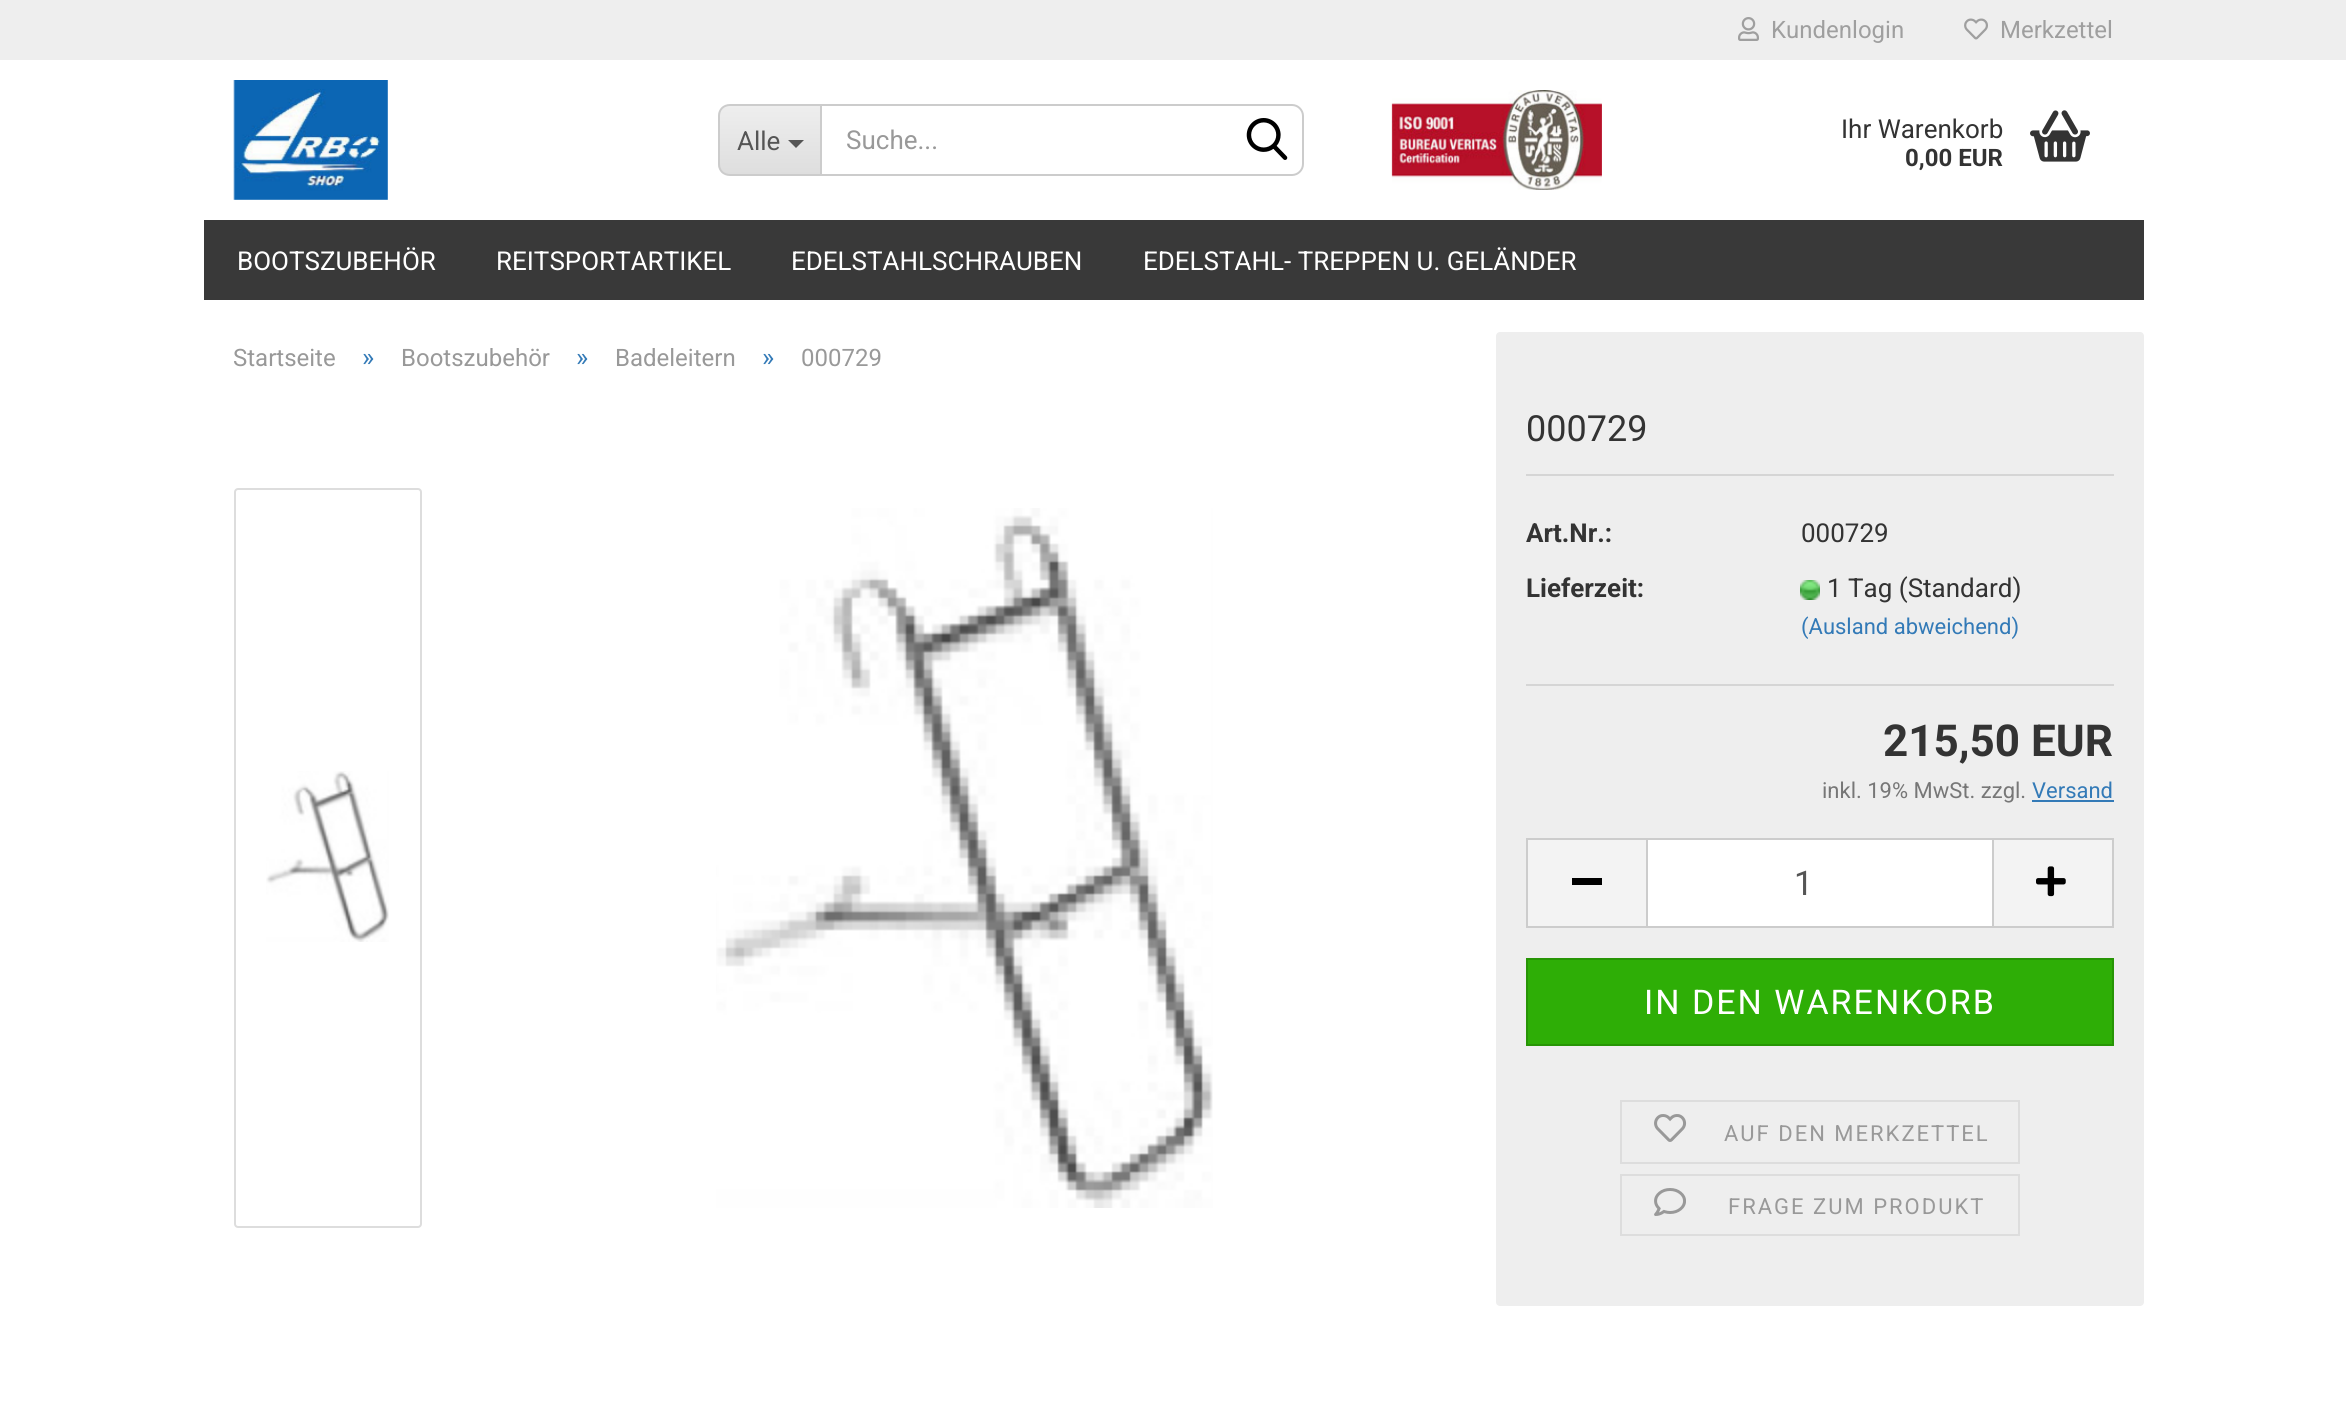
#include <cairo/cairo.h>
#include <math.h>
#include <stddef.h>


static void draw_spaced(cairo_t *cr, double x, double y, const char *s, double letter, double word) {
  cairo_move_to(cr, x, y);
  while (*s) {
    char ch[5] = {0};
    int n = 0;
    do ch[n++] = *s++; while ((*s & 0xC0) == 0x80);
    cairo_show_text(cr, ch);
    cairo_rel_move_to(cr, letter + word * (*ch == ' '), 0);
  }
}

static void rounded_rect(cairo_t *cr, double x, double y, double w, double h, double r) {
  cairo_new_sub_path(cr);
  cairo_arc(cr, x + w - r, y + h - r, r, 0, M_PI / 2);
  cairo_arc(cr, x + r, y + h - r, r, M_PI / 2, M_PI);
  cairo_arc(cr, x + r, y + r, r, M_PI, 1.5 * M_PI);
  cairo_arc(cr, x + w - r, y + r, r, 1.5 * M_PI, 2 * M_PI);
  cairo_close_path(cr);
}

static void draw_image(cairo_t *cr, const char *path, double x, double y, double w, double h) {
  cairo_surface_t *image = cairo_image_surface_create_from_png(path);
  cairo_save(cr);
  cairo_set_source_surface(cr, image, x, y);
  cairo_rectangle(cr, x, y, w, h);
  cairo_fill(cr);
  cairo_restore(cr);
  cairo_surface_destroy(image);
}

static void draw(cairo_t *cr) {
  cairo_pattern_t *gradient;
  cairo_set_source_rgb(cr, 1, 1, 1);
  cairo_paint(cr);
  cairo_set_source_rgb(cr, 238 / 255.0, 238 / 255.0, 238 / 255.0);
  cairo_rectangle(cr, 0, 0, 2346, 60);
  cairo_fill(cr);
  draw_image(cr, "images/1.png", 1738, 17, 21, 24);
  draw_image(cr, "images/2.png", 1964, 18, 24, 22);
  draw_image(cr, "images/3.png", 233, 80, 155, 120);
  cairo_save(cr);
  cairo_new_path(cr);
  cairo_move_to(cr, 730, 104);
  cairo_line_to(cr, 820, 104);
  cairo_line_to(cr, 820, 176);
  cairo_line_to(cr, 730, 176);
  cairo_curve_to(cr, 723.5, 176, 718, 170.5, 718, 164);
  cairo_line_to(cr, 718, 116);
  cairo_curve_to(cr, 718, 109.5, 723.5, 104, 730, 104);
  cairo_close_path(cr);
  cairo_clip(cr);
  gradient = cairo_pattern_create_linear(770, 106, 770, 174);
  cairo_pattern_add_color_stop_rgba(gradient, 0, 238 / 255.0, 238 / 255.0, 238 / 255.0, 1);
  cairo_pattern_add_color_stop_rgba(gradient, 1, 222 / 255.0, 222 / 255.0, 222 / 255.0, 1);
  cairo_set_source(cr, gradient);
  cairo_pattern_destroy(gradient);
  cairo_rectangle(cr, 718, 106, 102, 68);
  cairo_fill(cr);
  cairo_restore(cr);
  cairo_set_source_rgb(cr, 204 / 255.0, 204 / 255.0, 204 / 255.0);
  cairo_set_fill_rule(cr, CAIRO_FILL_RULE_EVEN_ODD);
  cairo_new_path(cr);
  cairo_move_to(cr, 730, 104);
  cairo_line_to(cr, 820, 104);
  cairo_line_to(cr, 820, 176);
  cairo_line_to(cr, 730, 176);
  cairo_curve_to(cr, 723, 176, 718, 171, 718, 164);
  cairo_line_to(cr, 718, 116);
  cairo_curve_to(cr, 718, 109, 723, 104, 730, 104);
  cairo_close_path(cr);
  cairo_move_to(cr, 730, 106);
  cairo_line_to(cr, 820, 106);
  cairo_line_to(cr, 820, 174);
  cairo_line_to(cr, 730, 174);
  cairo_curve_to(cr, 724, 174, 720, 170, 720, 164);
  cairo_line_to(cr, 720, 116);
  cairo_curve_to(cr, 720, 110, 724, 106, 730, 106);
  cairo_close_path(cr);
  cairo_fill(cr);
  cairo_set_source_rgb(cr, 85 / 255.0, 85 / 255.0, 85 / 255.0);
  cairo_set_fill_rule(cr, CAIRO_FILL_RULE_WINDING);
  cairo_new_path(cr);
  cairo_move_to(cr, 788, 140);
  cairo_line_to(cr, 804, 140);
  cairo_line_to(cr, 796, 148);
  cairo_close_path(cr);
  cairo_fill(cr);
  cairo_new_path(cr);
  cairo_move_to(cr, 821, 105);
  cairo_line_to(cr, 1292, 105);
  cairo_curve_to(cr, 1298, 105, 1303, 110, 1303, 116);
  cairo_line_to(cr, 1303, 164);
  cairo_curve_to(cr, 1303, 170, 1298, 175, 1292, 175);
  cairo_line_to(cr, 821, 175);
  cairo_close_path(cr);
  cairo_set_source_rgb(cr, 204 / 255.0, 204 / 255.0, 204 / 255.0);
  cairo_stroke(cr);
  draw_image(cr, "images/4.png", 1246, 118, 42, 42);
  draw_image(cr, "images/5.png", 1391, 90, 211, 100);
  draw_image(cr, "images/6.png", 2030, 110, 60, 52);
  cairo_set_source_rgb(cr, 57 / 255.0, 57 / 255.0, 57 / 255.0);
  cairo_rectangle(cr, 204, 220, 1940, 80);
  cairo_fill(cr);
  rounded_rect(cr, 235, 489, 186, 738, 3);
  cairo_set_source_rgb(cr, 221 / 255.0, 221 / 255.0, 221 / 255.0);
  cairo_stroke(cr);
  draw_image(cr, "images/7.png", 266, 771, 123, 171);
  draw_image(cr, "images/8.png", 716, 508, 497, 700);
  cairo_set_source_rgb(cr, 238 / 255.0, 238 / 255.0, 238 / 255.0);
  rounded_rect(cr, 1496, 332, 648, 974, 4);
  cairo_fill(cr);
  cairo_set_source_rgb(cr, 213 / 255.0, 213 / 255.0, 213 / 255.0);
  cairo_rectangle(cr, 1526, 474, 588, 2);
  cairo_fill(cr);
  cairo_rectangle(cr, 1526, 684, 588, 2);
  cairo_fill(cr);
  draw_image(cr, "images/9.png", 1800, 580, 20, 20);
  cairo_set_source_rgb(cr, 51 / 255.0, 122 / 255.0, 183 / 255.0);
  cairo_rectangle(cr, 2032, 800, 82, 2);
  cairo_fill(cr);
  cairo_set_source_rgb(cr, 243 / 255.0, 243 / 255.0, 243 / 255.0);
  cairo_rectangle(cr, 1528, 840, 118, 86);
  cairo_fill(cr);
  cairo_set_source_rgb(cr, 204 / 255.0, 204 / 255.0, 204 / 255.0);
  cairo_rectangle(cr, 1526, 838, 120, 2);
  cairo_fill(cr);
  cairo_rectangle(cr, 1526, 926, 120, 2);
  cairo_fill(cr);
  cairo_rectangle(cr, 1526, 838, 2, 90);
  cairo_fill(cr);
  cairo_set_source_rgb(cr, 0, 0, 0);
  cairo_rectangle(cr, 1572, 878, 30, 7);
  cairo_fill(cr);
  cairo_set_source_rgb(cr, 1, 1, 1);
  cairo_rectangle(cr, 1647, 839, 346, 88);
  cairo_fill_preserve(cr);
  cairo_set_source_rgb(cr, 204 / 255.0, 204 / 255.0, 204 / 255.0);
  cairo_stroke(cr);
  cairo_set_source_rgb(cr, 243 / 255.0, 243 / 255.0, 243 / 255.0);
  cairo_rectangle(cr, 1994, 840, 118, 86);
  cairo_fill(cr);
  cairo_set_source_rgb(cr, 204 / 255.0, 204 / 255.0, 204 / 255.0);
  cairo_rectangle(cr, 1994, 838, 120, 2);
  cairo_fill(cr);
  cairo_rectangle(cr, 2112, 838, 2, 90);
  cairo_fill(cr);
  cairo_rectangle(cr, 1994, 926, 120, 2);
  cairo_fill(cr);
  draw_image(cr, "images/10.png", 2036, 866, 30, 31);
  cairo_set_source_rgb(cr, 46 / 255.0, 174 / 255.0, 6 / 255.0);
  cairo_rectangle(cr, 1527, 959, 586, 86);
  cairo_fill_preserve(cr);
  cairo_set_source_rgb(cr, 39 / 255.0, 149 / 255.0, 5 / 255.0);
  cairo_stroke(cr);
  cairo_rectangle(cr, 1621, 1101, 398, 62);
  cairo_set_source_rgb(cr, 221 / 255.0, 221 / 255.0, 221 / 255.0);
  cairo_stroke(cr);
  draw_image(cr, "images/11.png", 1654, 1114, 33, 28);
  cairo_rectangle(cr, 1621, 1175, 398, 60);
  cairo_stroke(cr);
  draw_image(cr, "images/12.png", 1654, 1188, 32, 28);
  cairo_select_font_face(cr, "Roboto", CAIRO_FONT_SLANT_NORMAL, CAIRO_FONT_WEIGHT_NORMAL);
  cairo_set_font_size(cr, 24);
  cairo_set_source_rgb(cr, 159 / 255.0, 159 / 255.0, 159 / 255.0);
  cairo_move_to(cr, 1771, 38);
  cairo_show_text(cr, "Kundenlogin");
  cairo_move_to(cr, 2000, 38);
  cairo_show_text(cr, "Merkzettel");
  cairo_set_font_size(cr, 26);
  cairo_set_source_rgb(cr, 85 / 255.0, 85 / 255.0, 85 / 255.0);
  cairo_move_to(cr, 737, 150);
  cairo_show_text(cr, "Alle");
  cairo_set_source_rgb(cr, 153 / 255.0, 153 / 255.0, 153 / 255.0);
  cairo_move_to(cr, 846, 149);
  cairo_show_text(cr, "Suche...");
  cairo_set_source_rgb(cr, 51 / 255.0, 51 / 255.0, 51 / 255.0);
  cairo_move_to(cr, 1841, 138);
  cairo_show_text(cr, "Ihr Warenkorb");
  cairo_select_font_face(cr, "Roboto", CAIRO_FONT_SLANT_NORMAL, CAIRO_FONT_WEIGHT_BOLD);
  cairo_set_font_size(cr, 24);
  cairo_move_to(cr, 1905, 166);
  cairo_show_text(cr, "0,00 EUR");
  cairo_select_font_face(cr, "Roboto", CAIRO_FONT_SLANT_NORMAL, CAIRO_FONT_WEIGHT_NORMAL);
  cairo_set_font_size(cr, 26);
  cairo_set_source_rgb(cr, 1, 1, 1);
  cairo_move_to(cr, 237, 270);
  cairo_show_text(cr, "BOOTSZUBEHÖR");
  cairo_move_to(cr, 496, 270);
  cairo_show_text(cr, "REITSPORTARTIKEL");
  cairo_move_to(cr, 791, 270);
  cairo_show_text(cr, "EDELSTAHLSCHRAUBEN");
  cairo_move_to(cr, 1143, 270);
  cairo_show_text(cr, "EDELSTAHL- TREPPEN U. GELÄNDER");
  cairo_set_font_size(cr, 24);
  cairo_set_source_rgb(cr, 153 / 255.0, 153 / 255.0, 153 / 255.0);
  cairo_move_to(cr, 233, 366);
  cairo_show_text(cr, "Startseite");
  cairo_set_font_size(cr, 26);
  cairo_set_source_rgb(cr, 51 / 255.0, 122 / 255.0, 183 / 255.0);
  cairo_move_to(cr, 362, 366);
  cairo_show_text(cr, "»");
  cairo_set_font_size(cr, 24);
  cairo_set_source_rgb(cr, 153 / 255.0, 153 / 255.0, 153 / 255.0);
  cairo_move_to(cr, 401, 366);
  cairo_show_text(cr, "Bootszubehör");
  cairo_set_font_size(cr, 26);
  cairo_set_source_rgb(cr, 51 / 255.0, 122 / 255.0, 183 / 255.0);
  cairo_move_to(cr, 576, 366);
  cairo_show_text(cr, "»");
  cairo_set_font_size(cr, 24);
  cairo_set_source_rgb(cr, 153 / 255.0, 153 / 255.0, 153 / 255.0);
  cairo_move_to(cr, 615, 366);
  cairo_show_text(cr, "Badeleitern");
  cairo_set_font_size(cr, 26);
  cairo_set_source_rgb(cr, 51 / 255.0, 122 / 255.0, 183 / 255.0);
  cairo_move_to(cr, 762, 366);
  cairo_show_text(cr, "»");
  cairo_set_font_size(cr, 24);
  cairo_set_source_rgb(cr, 153 / 255.0, 153 / 255.0, 153 / 255.0);
  cairo_move_to(cr, 801, 366);
  cairo_show_text(cr, "000729");
  cairo_set_font_size(cr, 36);
  cairo_set_source_rgb(cr, 51 / 255.0, 51 / 255.0, 51 / 255.0);
  cairo_move_to(cr, 1526, 441);
  cairo_show_text(cr, "000729");
  cairo_select_font_face(cr, "Roboto", CAIRO_FONT_SLANT_NORMAL, CAIRO_FONT_WEIGHT_BOLD);
  cairo_set_font_size(cr, 26);
  cairo_move_to(cr, 1526, 542);
  cairo_show_text(cr, "Art.Nr.:");
  cairo_select_font_face(cr, "Roboto", CAIRO_FONT_SLANT_NORMAL, CAIRO_FONT_WEIGHT_NORMAL);
  cairo_move_to(cr, 1801, 542);
  cairo_show_text(cr, "000729");
  cairo_select_font_face(cr, "Roboto", CAIRO_FONT_SLANT_NORMAL, CAIRO_FONT_WEIGHT_BOLD);
  cairo_move_to(cr, 1526, 597);
  cairo_show_text(cr, "Lieferzeit:");
  cairo_select_font_face(cr, "Roboto", CAIRO_FONT_SLANT_NORMAL, CAIRO_FONT_WEIGHT_NORMAL);
  cairo_move_to(cr, 1827, 597);
  cairo_show_text(cr, "1 Tag (Standard)");
  cairo_set_font_size(cr, 22);
  cairo_set_source_rgb(cr, 51 / 255.0, 122 / 255.0, 183 / 255.0);
  cairo_move_to(cr, 1801, 634);
  cairo_show_text(cr, "(Ausland abweichend)");
  cairo_select_font_face(cr, "Roboto", CAIRO_FONT_SLANT_NORMAL, CAIRO_FONT_WEIGHT_BOLD);
  cairo_set_font_size(cr, 44);
  cairo_set_source_rgb(cr, 51 / 255.0, 51 / 255.0, 51 / 255.0);
  cairo_move_to(cr, 1883, 756);
  cairo_show_text(cr, "215,50 EUR");
  cairo_select_font_face(cr, "Roboto", CAIRO_FONT_SLANT_NORMAL, CAIRO_FONT_WEIGHT_NORMAL);
  cairo_set_font_size(cr, 22);
  cairo_set_source_rgb(cr, 119 / 255.0, 119 / 255.0, 119 / 255.0);
  cairo_move_to(cr, 1822, 798);
  cairo_show_text(cr, "inkl. 19% MwSt. zzgl.");
  cairo_set_source_rgb(cr, 51 / 255.0, 122 / 255.0, 183 / 255.0);
  cairo_move_to(cr, 2032, 798);
  cairo_show_text(cr, "Versand");
  cairo_set_font_size(cr, 34);
  cairo_set_source_rgb(cr, 85 / 255.0, 85 / 255.0, 85 / 255.0);
  cairo_move_to(cr, 1794, 895);
  cairo_show_text(cr, "1");
  cairo_set_source_rgb(cr, 1, 1, 1);
  draw_spaced(cr, 1644, 1014, "IN DEN WARENKORB", 2, 0);
  cairo_set_font_size(cr, 22);
  cairo_set_source_rgb(cr, 153 / 255.0, 153 / 255.0, 153 / 255.0);
  draw_spaced(cr, 1724, 1141, "AUF DEN MERKZETTEL", 2, 0);
  draw_spaced(cr, 1728, 1214, "FRAGE ZUM PRODUKT", 2, 0);
}

int main(void) {
  cairo_surface_t *surface = cairo_image_surface_create(CAIRO_FORMAT_RGB24, 2346, 1426);
  cairo_t *cr = cairo_create(surface);
  cairo_font_options_t *options = cairo_font_options_create();
  cairo_font_options_set_hint_metrics(options, CAIRO_HINT_METRICS_OFF);
  cairo_font_options_set_hint_style(options, CAIRO_HINT_STYLE_NONE);
  cairo_set_font_options(cr, options);
  cairo_set_miter_limit(cr, 4);
  draw(cr);
  cairo_surface_write_to_png(surface, "out.png");
  cairo_font_options_destroy(options);
  cairo_destroy(cr);
  cairo_surface_destroy(surface);
  return 0;
}
